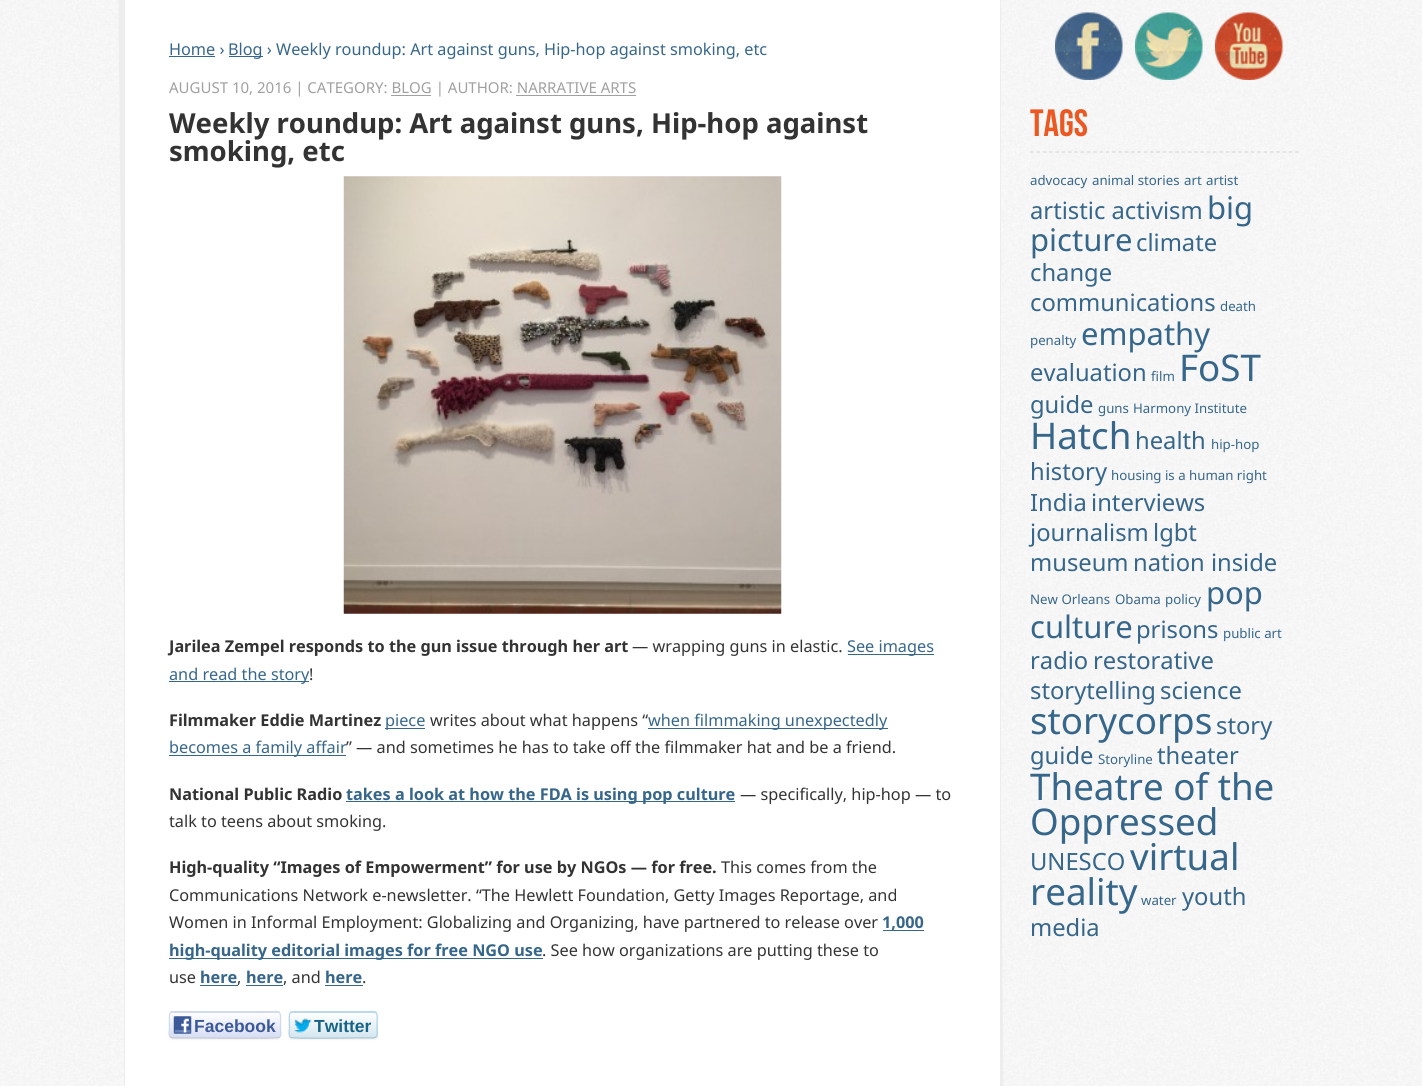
#include <cairo/cairo.h>
#include <math.h>
#include <stddef.h>


static void rounded_rect(cairo_t *cr, double x, double y, double w, double h, double r) {
  cairo_new_sub_path(cr);
  cairo_arc(cr, x + w - r, y + h - r, r, 0, M_PI / 2);
  cairo_arc(cr, x + r, y + h - r, r, M_PI / 2, M_PI);
  cairo_arc(cr, x + r, y + r, r, M_PI, 1.5 * M_PI);
  cairo_arc(cr, x + w - r, y + r, r, 1.5 * M_PI, 2 * M_PI);
  cairo_close_path(cr);
}

static void draw_shadow(cairo_t *cr, double x, double y, double w, double h, double r, double blur, double alpha) {
  cairo_push_group_with_content(cr, CAIRO_CONTENT_ALPHA);
  cairo_set_operator(cr, CAIRO_OPERATOR_SOURCE);
  for (int i = 15; i >= -15 && fmin(w, h) + blur * i / 3 > 0; i -= 2) {
    double e = blur * i / 6;
    cairo_set_source_rgba(cr, 0, 0, 0, alpha * erfc((i - 1) / 8.5) / 2);
    rounded_rect(cr, x - e, y - e, w + 2 * e, h + 2 * e, fmax(0, fmin(r + e + blur * .6, fmin(w, h) / 2 + e)));
    cairo_fill(cr);
  }
  cairo_pattern_t *soft = cairo_pop_group(cr);
  cairo_mask(cr, soft);
  cairo_pattern_destroy(soft);
}

static void draw_image(cairo_t *cr, const char *path, double x, double y, double w, double h) {
  cairo_surface_t *image = cairo_image_surface_create_from_png(path);
  cairo_save(cr);
  cairo_set_source_surface(cr, image, x, y);
  cairo_rectangle(cr, x, y, w, h);
  cairo_fill(cr);
  cairo_restore(cr);
  cairo_surface_destroy(image);
}

static void draw(cairo_t *cr) {
  cairo_pattern_t *gradient;
  cairo_set_source_rgb(cr, 1, 1, 1);
  cairo_paint(cr);
  draw_image(cr, "images/1.png", 0, 0, 1422, 1086);
  cairo_set_source_rgb(cr, 237 / 255.0, 237 / 255.0, 237 / 255.0);
  cairo_new_path(cr);
  cairo_move_to(cr, 143, -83);
  cairo_line_to(cr, 993, -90);
  cairo_line_to(cr, 1004, 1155);
  cairo_curve_to(cr, 1004, 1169, 993, 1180, 979, 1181);
  cairo_line_to(cr, 129, 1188);
  cairo_line_to(cr, 118, -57);
  cairo_curve_to(cr, 118, -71, 129, -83, 143, -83);
  cairo_close_path(cr);
  cairo_fill(cr);
  cairo_set_source_rgb(cr, 1, 1, 1);
  cairo_rectangle(cr, 124.5, -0.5, 876, 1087);
  cairo_fill_preserve(cr);
  cairo_set_source_rgb(cr, 237 / 255.0, 237 / 255.0, 237 / 255.0);
  cairo_set_line_width(cr, 1);
  cairo_stroke(cr);
  cairo_set_source_rgb(cr, 54 / 255.0, 102 / 255.0, 138 / 255.0);
  cairo_rectangle(cr, 169, 56, 46, 1);
  cairo_fill(cr);
  cairo_rectangle(cr, 229, 56, 34, 1);
  cairo_fill(cr);
  cairo_set_source_rgb(cr, 160 / 255.0, 160 / 255.0, 160 / 255.0);
  cairo_rectangle(cr, 391, 95, 40, 1);
  cairo_fill(cr);
  cairo_rectangle(cr, 516, 95, 120, 1);
  cairo_fill(cr);
  draw_image(cr, "images/2.png", 343, 176, 439, 438);
  cairo_set_source_rgb(cr, 54 / 255.0, 102 / 255.0, 138 / 255.0);
  cairo_rectangle(cr, 848, 654, 86, 1);
  cairo_fill(cr);
  cairo_rectangle(cr, 169, 681, 140, 1);
  cairo_fill(cr);
  cairo_rectangle(cr, 385, 728, 40, 1);
  cairo_fill(cr);
  cairo_rectangle(cr, 648, 728, 240, 1);
  cairo_fill(cr);
  cairo_rectangle(cr, 169, 755, 177, 1);
  cairo_fill(cr);
  cairo_rectangle(cr, 346, 801, 389, 1);
  cairo_fill(cr);
  cairo_rectangle(cr, 883, 930, 41, 1);
  cairo_fill(cr);
  cairo_rectangle(cr, 169, 958, 374, 1);
  cairo_fill(cr);
  cairo_rectangle(cr, 200, 985, 38, 1);
  cairo_fill(cr);
  cairo_rectangle(cr, 246, 985, 37, 1);
  cairo_fill(cr);
  cairo_rectangle(cr, 325, 985, 38, 1);
  cairo_fill(cr);
  cairo_set_source_rgb(cr, 0, 0, 0);
  draw_shadow(cr, 169, 1013, 112, 27, 4, 0.5, 0.05);
  cairo_save(cr);
  rounded_rect(cr, 169, 1011, 112, 28, 4);
  cairo_clip(cr);
  gradient = cairo_pattern_create_linear(225, 987, 225, 1012);
  cairo_pattern_add_color_stop_rgba(gradient, 0, 1, 1, 1, 1);
  cairo_pattern_add_color_stop_rgba(gradient, 1, 216 / 255.0, 222 / 255.0, 244 / 255.0, 1);
  cairo_set_source(cr, gradient);
  cairo_pattern_destroy(gradient);
  cairo_rectangle(cr, 169, 1011, 112, 2);
  cairo_fill(cr);
  gradient = cairo_pattern_create_linear(225, 1012, 225, 1037);
  cairo_pattern_add_color_stop_rgba(gradient, 0, 1, 1, 1, 1);
  cairo_pattern_add_color_stop_rgba(gradient, 1, 216 / 255.0, 222 / 255.0, 244 / 255.0, 1);
  cairo_set_source(cr, gradient);
  cairo_pattern_destroy(gradient);
  cairo_rectangle(cr, 169, 1013, 112, 25);
  cairo_fill(cr);
  gradient = cairo_pattern_create_linear(225, 1037, 225, 1062);
  cairo_pattern_add_color_stop_rgba(gradient, 0, 1, 1, 1, 1);
  cairo_pattern_add_color_stop_rgba(gradient, 1, 216 / 255.0, 222 / 255.0, 244 / 255.0, 1);
  cairo_set_source(cr, gradient);
  cairo_pattern_destroy(gradient);
  cairo_rectangle(cr, 169, 1038, 112, 1);
  cairo_fill(cr);
  cairo_restore(cr);
  cairo_new_path(cr);
  cairo_move_to(cr, 279.5, 1037);
  cairo_line_to(cr, 279, 1037.5);
  cairo_curve_to(cr, 277, 1039, 199.5, 1038, 190, 1038);
  cairo_line_to(cr, 172.5, 1038);
  cairo_line_to(cr, 170.5, 1037);
  cairo_set_source_rgba(cr, 189 / 255.0, 194 / 255.0, 203 / 255.0, 0.8);
  cairo_set_line_width(cr, 1.3);
  cairo_stroke(cr);
  cairo_new_path(cr);
  cairo_move_to(cr, 170.5, 1037);
  cairo_curve_to(cr, 168, 1035, 169.5, 1030.5, 169.5, 1028.5);
  cairo_curve_to(cr, 169.5, 1007.5, 166.5, 1012, 190, 1012);
  cairo_line_to(cr, 260, 1012);
  cairo_curve_to(cr, 283.5, 1012, 280.5, 1007.5, 280.5, 1028.5);
  cairo_curve_to(cr, 280.5, 1030.5, 282, 1035, 279.5, 1037);
  cairo_set_source_rgba(cr, 202 / 255.0, 212 / 255.0, 231 / 255.0, 0.8);
  cairo_stroke(cr);
  draw_image(cr, "images/3.png", 173, 1016, 19, 18);
  cairo_set_source_rgb(cr, 0, 0, 0);
  draw_shadow(cr, 289, 1013, 89, 27, 4, 0.5, 0.05);
  cairo_save(cr);
  rounded_rect(cr, 289, 1011, 89, 28, 4);
  cairo_clip(cr);
  gradient = cairo_pattern_create_linear(333, 987, 333, 1012);
  cairo_pattern_add_color_stop_rgba(gradient, 0, 1, 1, 1, 1);
  cairo_pattern_add_color_stop_rgba(gradient, 1, 213 / 255.0, 230 / 255.0, 239 / 255.0, 1);
  cairo_set_source(cr, gradient);
  cairo_pattern_destroy(gradient);
  cairo_rectangle(cr, 289, 1011, 89, 2);
  cairo_fill(cr);
  gradient = cairo_pattern_create_linear(333, 1012, 333, 1037);
  cairo_pattern_add_color_stop_rgba(gradient, 0, 1, 1, 1, 1);
  cairo_pattern_add_color_stop_rgba(gradient, 1, 213 / 255.0, 230 / 255.0, 239 / 255.0, 1);
  cairo_set_source(cr, gradient);
  cairo_pattern_destroy(gradient);
  cairo_rectangle(cr, 289, 1013, 89, 25);
  cairo_fill(cr);
  gradient = cairo_pattern_create_linear(333, 1037, 333, 1062);
  cairo_pattern_add_color_stop_rgba(gradient, 0, 1, 1, 1, 1);
  cairo_pattern_add_color_stop_rgba(gradient, 1, 213 / 255.0, 230 / 255.0, 239 / 255.0, 1);
  cairo_set_source(cr, gradient);
  cairo_pattern_destroy(gradient);
  cairo_rectangle(cr, 289, 1038, 89, 1);
  cairo_fill(cr);
  cairo_restore(cr);
  cairo_new_path(cr);
  cairo_move_to(cr, 376, 1037);
  cairo_line_to(cr, 373.5, 1038);
  cairo_line_to(cr, 360, 1038);
  cairo_curve_to(cr, 352.5, 1038, 292.5, 1039, 290.5, 1037.5);
  cairo_line_to(cr, 290.5, 1037);
  cairo_set_source_rgba(cr, 158 / 255.0, 186 / 255.0, 204 / 255.0, 0.8);
  cairo_stroke(cr);
  cairo_new_path(cr);
  cairo_move_to(cr, 290.5, 1037);
  cairo_curve_to(cr, 288, 1035, 289.5, 1030.5, 289.5, 1028.5);
  cairo_curve_to(cr, 289.5, 1009, 286, 1012, 306, 1012);
  cairo_line_to(cr, 360, 1012);
  cairo_curve_to(cr, 380.5, 1012, 377, 1009, 377, 1028.5);
  cairo_curve_to(cr, 377, 1030.5, 378, 1035, 376, 1037);
  cairo_set_source_rgba(cr, 164 / 255.0, 204 / 255.0, 229 / 255.0, 0.8);
  cairo_stroke(cr);
  draw_image(cr, "images/4.png", 294, 1018, 18, 15);
  draw_image(cr, "images/5.png", 1055, 12, 68, 68);
  draw_image(cr, "images/6.png", 1135, 12, 68, 68);
  draw_image(cr, "images/7.png", 1215, 12, 68, 68);
  cairo_new_path(cr);
  cairo_move_to(cr, 1030, 152);
  cairo_line_to(cr, 1299, 152);
  cairo_set_source_rgb(cr, 218 / 255.0, 218 / 255.0, 218 / 255.0);
  cairo_set_line_width(cr, 1.2);
  cairo_set_dash(cr, (double[]){3.75, 2.56}, 2, 0);
  cairo_stroke(cr);
  cairo_select_font_face(cr, "Noto Sans", CAIRO_FONT_SLANT_NORMAL, CAIRO_FONT_WEIGHT_NORMAL);
  cairo_set_font_size(cr, 16.25);
  cairo_set_source_rgb(cr, 54 / 255.0, 102 / 255.0, 138 / 255.0);
  cairo_move_to(cr, 169, 55);
  cairo_show_text(cr, "Home ›");
  cairo_move_to(cr, 228, 55);
  cairo_show_text(cr, "Blog › Weekly roundup: Art against guns, Hip-hop against smoking, etc");
  cairo_set_font_size(cr, 15);
  cairo_set_source_rgb(cr, 160 / 255.0, 160 / 255.0, 160 / 255.0);
  cairo_move_to(cr, 169, 93);
  cairo_show_text(cr, "AUGUST 10, 2016 | CATEGORY: BLOG | AUTHOR: NARRATIVE ARTS");
  cairo_select_font_face(cr, "Noto Sans", CAIRO_FONT_SLANT_NORMAL, CAIRO_FONT_WEIGHT_BOLD);
  cairo_set_font_size(cr, 27.5);
  cairo_set_source_rgb(cr, 51 / 255.0, 51 / 255.0, 51 / 255.0);
  cairo_move_to(cr, 169, 133);
  cairo_show_text(cr, "Weekly roundup: Art against guns, Hip-hop against");
  cairo_move_to(cr, 169, 161);
  cairo_show_text(cr, "smoking, etc");
  cairo_set_font_size(cr, 16.25);
  cairo_move_to(cr, 169, 652);
  cairo_show_text(cr, "Jarilea Zempel responds to the gun issue through her art");
  cairo_select_font_face(cr, "Noto Sans", CAIRO_FONT_SLANT_NORMAL, CAIRO_FONT_WEIGHT_NORMAL);
  cairo_move_to(cr, 632, 652);
  cairo_show_text(cr, "— wrapping guns in elastic.");
  cairo_set_source_rgb(cr, 54 / 255.0, 102 / 255.0, 138 / 255.0);
  cairo_move_to(cr, 847, 652);
  cairo_show_text(cr, "See images");
  cairo_move_to(cr, 169, 680);
  cairo_show_text(cr, "and read the story");
  cairo_set_source_rgb(cr, 51 / 255.0, 51 / 255.0, 51 / 255.0);
  cairo_move_to(cr, 309, 680);
  cairo_show_text(cr, "!");
  cairo_select_font_face(cr, "Noto Sans", CAIRO_FONT_SLANT_NORMAL, CAIRO_FONT_WEIGHT_BOLD);
  cairo_move_to(cr, 169, 726);
  cairo_show_text(cr, "Filmmaker Eddie Martinez");
  cairo_select_font_face(cr, "Noto Sans", CAIRO_FONT_SLANT_NORMAL, CAIRO_FONT_WEIGHT_NORMAL);
  cairo_set_source_rgb(cr, 54 / 255.0, 102 / 255.0, 138 / 255.0);
  cairo_move_to(cr, 385, 726);
  cairo_show_text(cr, "piece");
  cairo_set_source_rgb(cr, 51 / 255.0, 51 / 255.0, 51 / 255.0);
  cairo_move_to(cr, 430, 726);
  cairo_show_text(cr, "writes about what happens “");
  cairo_set_source_rgb(cr, 54 / 255.0, 102 / 255.0, 138 / 255.0);
  cairo_move_to(cr, 648, 726);
  cairo_show_text(cr, "when filmmaking unexpectedly");
  cairo_move_to(cr, 169, 753);
  cairo_show_text(cr, "becomes a family affair");
  cairo_set_source_rgb(cr, 51 / 255.0, 51 / 255.0, 51 / 255.0);
  cairo_move_to(cr, 346, 753);
  cairo_show_text(cr, "” — and sometimes he has to take off the filmmaker hat and be a friend.");
  cairo_select_font_face(cr, "Noto Sans", CAIRO_FONT_SLANT_NORMAL, CAIRO_FONT_WEIGHT_BOLD);
  cairo_move_to(cr, 169, 800);
  cairo_show_text(cr, "National Public Radio");
  cairo_set_source_rgb(cr, 54 / 255.0, 102 / 255.0, 138 / 255.0);
  cairo_move_to(cr, 346, 800);
  cairo_show_text(cr, "takes a look at how the FDA is using pop culture");
  cairo_select_font_face(cr, "Noto Sans", CAIRO_FONT_SLANT_NORMAL, CAIRO_FONT_WEIGHT_NORMAL);
  cairo_set_source_rgb(cr, 51 / 255.0, 51 / 255.0, 51 / 255.0);
  cairo_move_to(cr, 740, 800);
  cairo_show_text(cr, "— specifically, hip-hop — to");
  cairo_move_to(cr, 169, 827);
  cairo_show_text(cr, "talk to teens about smoking.");
  cairo_select_font_face(cr, "Noto Sans", CAIRO_FONT_SLANT_NORMAL, CAIRO_FONT_WEIGHT_BOLD);
  cairo_move_to(cr, 169, 873);
  cairo_show_text(cr, "High-quality “Images of Empowerment” for use by NGOs — for free.");
  cairo_select_font_face(cr, "Noto Sans", CAIRO_FONT_SLANT_NORMAL, CAIRO_FONT_WEIGHT_NORMAL);
  cairo_move_to(cr, 721, 873);
  cairo_show_text(cr, "This comes from the");
  cairo_move_to(cr, 169, 901);
  cairo_show_text(cr, "Communications Network e-newsletter. “The Hewlett Foundation, Getty Images Reportage, and");
  cairo_move_to(cr, 169, 928);
  cairo_show_text(cr, "Women in Informal Employment: Globalizing and Organizing, have partnered to release over");
  cairo_select_font_face(cr, "Noto Sans", CAIRO_FONT_SLANT_NORMAL, CAIRO_FONT_WEIGHT_BOLD);
  cairo_set_source_rgb(cr, 54 / 255.0, 102 / 255.0, 138 / 255.0);
  cairo_move_to(cr, 882, 928);
  cairo_show_text(cr, "1,000");
  cairo_move_to(cr, 169, 956);
  cairo_show_text(cr, "high-quality editorial images for free NGO use");
  cairo_select_font_face(cr, "Noto Sans", CAIRO_FONT_SLANT_NORMAL, CAIRO_FONT_WEIGHT_NORMAL);
  cairo_set_source_rgb(cr, 51 / 255.0, 51 / 255.0, 51 / 255.0);
  cairo_move_to(cr, 542, 956);
  cairo_show_text(cr, ". See how organizations are putting these to");
  cairo_move_to(cr, 169, 983);
  cairo_show_text(cr, "use");
  cairo_select_font_face(cr, "Noto Sans", CAIRO_FONT_SLANT_NORMAL, CAIRO_FONT_WEIGHT_BOLD);
  cairo_set_source_rgb(cr, 54 / 255.0, 102 / 255.0, 138 / 255.0);
  cairo_move_to(cr, 200, 983);
  cairo_show_text(cr, "here");
  cairo_select_font_face(cr, "Noto Sans", CAIRO_FONT_SLANT_NORMAL, CAIRO_FONT_WEIGHT_NORMAL);
  cairo_set_source_rgb(cr, 51 / 255.0, 51 / 255.0, 51 / 255.0);
  cairo_move_to(cr, 237, 983);
  cairo_show_text(cr, ",");
  cairo_select_font_face(cr, "Noto Sans", CAIRO_FONT_SLANT_NORMAL, CAIRO_FONT_WEIGHT_BOLD);
  cairo_set_source_rgb(cr, 54 / 255.0, 102 / 255.0, 138 / 255.0);
  cairo_move_to(cr, 246, 983);
  cairo_show_text(cr, "here");
  cairo_select_font_face(cr, "Noto Sans", CAIRO_FONT_SLANT_NORMAL, CAIRO_FONT_WEIGHT_NORMAL);
  cairo_set_source_rgb(cr, 51 / 255.0, 51 / 255.0, 51 / 255.0);
  cairo_move_to(cr, 283, 983);
  cairo_show_text(cr, ", and");
  cairo_select_font_face(cr, "Noto Sans", CAIRO_FONT_SLANT_NORMAL, CAIRO_FONT_WEIGHT_BOLD);
  cairo_set_source_rgb(cr, 54 / 255.0, 102 / 255.0, 138 / 255.0);
  cairo_move_to(cr, 325, 983);
  cairo_show_text(cr, "here");
  cairo_select_font_face(cr, "Noto Sans", CAIRO_FONT_SLANT_NORMAL, CAIRO_FONT_WEIGHT_NORMAL);
  cairo_set_source_rgb(cr, 51 / 255.0, 51 / 255.0, 51 / 255.0);
  cairo_move_to(cr, 362, 983);
  cairo_show_text(cr, ".");
  cairo_select_font_face(cr, "Liberation Sans", CAIRO_FONT_SLANT_NORMAL, CAIRO_FONT_WEIGHT_BOLD);
  cairo_set_font_size(cr, 17.5);
  cairo_set_source_rgb(cr, 59 / 255.0, 89 / 255.0, 152 / 255.0);
  cairo_move_to(cr, 194, 1032);
  cairo_show_text(cr, "Facebook");
  cairo_set_source_rgb(cr, 24 / 255.0, 100 / 255.0, 135 / 255.0);
  cairo_move_to(cr, 314, 1032);
  cairo_show_text(cr, "Twitter");
  cairo_select_font_face(cr, "Bebas Neue", CAIRO_FONT_SLANT_NORMAL, CAIRO_FONT_WEIGHT_NORMAL);
  cairo_set_font_size(cr, 38);
  cairo_set_source_rgb(cr, 236 / 255.0, 88 / 255.0, 34 / 255.0);
  cairo_move_to(cr, 1030, 136);
  cairo_show_text(cr, "TAGS");
  cairo_select_font_face(cr, "Noto Sans", CAIRO_FONT_SLANT_NORMAL, CAIRO_FONT_WEIGHT_NORMAL);
  cairo_set_font_size(cr, 13.25);
  cairo_set_source_rgb(cr, 54 / 255.0, 102 / 255.0, 138 / 255.0);
  cairo_move_to(cr, 1030, 185);
  cairo_show_text(cr, "advocacy");
  cairo_move_to(cr, 1092, 185);
  cairo_show_text(cr, "animal stories");
  cairo_move_to(cr, 1184, 185);
  cairo_show_text(cr, "art");
  cairo_move_to(cr, 1206, 185);
  cairo_show_text(cr, "artist");
  cairo_set_font_size(cr, 23.75);
  cairo_move_to(cr, 1030, 219);
  cairo_show_text(cr, "artistic activism");
  cairo_set_font_size(cr, 31);
  cairo_move_to(cr, 1207, 219);
  cairo_show_text(cr, "big");
  cairo_move_to(cr, 1030, 251);
  cairo_show_text(cr, "picture");
  cairo_set_font_size(cr, 23.75);
  cairo_move_to(cr, 1136, 251);
  cairo_show_text(cr, "climate");
  cairo_move_to(cr, 1030, 281);
  cairo_show_text(cr, "change");
  cairo_move_to(cr, 1030, 311);
  cairo_show_text(cr, "communications");
  cairo_set_font_size(cr, 13.25);
  cairo_move_to(cr, 1220, 311);
  cairo_show_text(cr, "death");
  cairo_move_to(cr, 1030, 345);
  cairo_show_text(cr, "penalty");
  cairo_set_font_size(cr, 31);
  cairo_move_to(cr, 1081, 345);
  cairo_show_text(cr, "empathy");
  cairo_set_font_size(cr, 23.75);
  cairo_move_to(cr, 1030, 381);
  cairo_show_text(cr, "evaluation");
  cairo_set_font_size(cr, 13.25);
  cairo_move_to(cr, 1151, 381);
  cairo_show_text(cr, "film");
  cairo_set_font_size(cr, 36.75);
  cairo_move_to(cr, 1179, 381);
  cairo_show_text(cr, "FoST");
  cairo_set_font_size(cr, 23.75);
  cairo_move_to(cr, 1030, 413);
  cairo_show_text(cr, "guide");
  cairo_set_font_size(cr, 13.25);
  cairo_move_to(cr, 1098, 413);
  cairo_show_text(cr, "guns");
  cairo_move_to(cr, 1133, 413);
  cairo_show_text(cr, "Harmony Institute");
  cairo_set_font_size(cr, 36.75);
  cairo_move_to(cr, 1030, 449);
  cairo_show_text(cr, "Hatch");
  cairo_set_font_size(cr, 23.75);
  cairo_move_to(cr, 1135, 449);
  cairo_show_text(cr, "health");
  cairo_set_font_size(cr, 13.25);
  cairo_move_to(cr, 1211, 449);
  cairo_show_text(cr, "hip-hop");
  cairo_set_font_size(cr, 23.75);
  cairo_move_to(cr, 1030, 480);
  cairo_show_text(cr, "history");
  cairo_set_font_size(cr, 13.25);
  cairo_move_to(cr, 1111, 480);
  cairo_show_text(cr, "housing is a human right");
  cairo_set_font_size(cr, 23.75);
  cairo_move_to(cr, 1030, 511);
  cairo_show_text(cr, "India");
  cairo_move_to(cr, 1091, 511);
  cairo_show_text(cr, "interviews");
  cairo_move_to(cr, 1030, 541);
  cairo_show_text(cr, "journalism");
  cairo_move_to(cr, 1153, 541);
  cairo_show_text(cr, "lgbt");
  cairo_move_to(cr, 1030, 571);
  cairo_show_text(cr, "museum");
  cairo_move_to(cr, 1133, 571);
  cairo_show_text(cr, "nation inside");
  cairo_set_font_size(cr, 13.25);
  cairo_move_to(cr, 1030, 604);
  cairo_show_text(cr, "New Orleans");
  cairo_move_to(cr, 1115, 604);
  cairo_show_text(cr, "Obama");
  cairo_move_to(cr, 1165, 604);
  cairo_show_text(cr, "policy");
  cairo_set_font_size(cr, 31);
  cairo_move_to(cr, 1206, 604);
  cairo_show_text(cr, "pop");
  cairo_move_to(cr, 1030, 638);
  cairo_show_text(cr, "culture");
  cairo_set_font_size(cr, 23.75);
  cairo_move_to(cr, 1136, 638);
  cairo_show_text(cr, "prisons");
  cairo_set_font_size(cr, 13.25);
  cairo_move_to(cr, 1223, 638);
  cairo_show_text(cr, "public art");
  cairo_set_font_size(cr, 23.75);
  cairo_move_to(cr, 1030, 669);
  cairo_show_text(cr, "radio");
  cairo_move_to(cr, 1093, 669);
  cairo_show_text(cr, "restorative");
  cairo_move_to(cr, 1030, 699);
  cairo_show_text(cr, "storytelling");
  cairo_move_to(cr, 1160, 699);
  cairo_show_text(cr, "science");
  cairo_set_font_size(cr, 36.75);
  cairo_move_to(cr, 1030, 734);
  cairo_show_text(cr, "storycorps");
  cairo_set_font_size(cr, 23.75);
  cairo_move_to(cr, 1216, 734);
  cairo_show_text(cr, "story");
  cairo_move_to(cr, 1030, 764);
  cairo_show_text(cr, "guide");
  cairo_set_font_size(cr, 13.25);
  cairo_move_to(cr, 1098, 764);
  cairo_show_text(cr, "Storyline");
  cairo_set_font_size(cr, 23.75);
  cairo_move_to(cr, 1157, 764);
  cairo_show_text(cr, "theater");
  cairo_set_font_size(cr, 36.75);
  cairo_move_to(cr, 1030, 800);
  cairo_show_text(cr, "Theatre of the");
  cairo_move_to(cr, 1030, 835);
  cairo_show_text(cr, "Oppressed");
  cairo_set_font_size(cr, 23.75);
  cairo_move_to(cr, 1030, 870);
  cairo_show_text(cr, "UNESCO");
  cairo_set_font_size(cr, 36.75);
  cairo_move_to(cr, 1130, 870);
  cairo_show_text(cr, "virtual");
  cairo_move_to(cr, 1030, 905);
  cairo_show_text(cr, "reality");
  cairo_set_font_size(cr, 13.25);
  cairo_move_to(cr, 1141, 905);
  cairo_show_text(cr, "water");
  cairo_set_font_size(cr, 23.75);
  cairo_move_to(cr, 1182, 905);
  cairo_show_text(cr, "youth");
  cairo_move_to(cr, 1030, 936);
  cairo_show_text(cr, "media");
}

int main(void) {
  cairo_surface_t *surface = cairo_image_surface_create(CAIRO_FORMAT_RGB24, 1422, 1086);
  cairo_t *cr = cairo_create(surface);
  cairo_font_options_t *options = cairo_font_options_create();
  cairo_font_options_set_hint_metrics(options, CAIRO_HINT_METRICS_OFF);
  cairo_font_options_set_hint_style(options, CAIRO_HINT_STYLE_NONE);
  cairo_set_font_options(cr, options);
  cairo_set_miter_limit(cr, 4);
  draw(cr);
  cairo_surface_write_to_png(surface, "out.png");
  cairo_font_options_destroy(options);
  cairo_destroy(cr);
  cairo_surface_destroy(surface);
  return 0;
}
